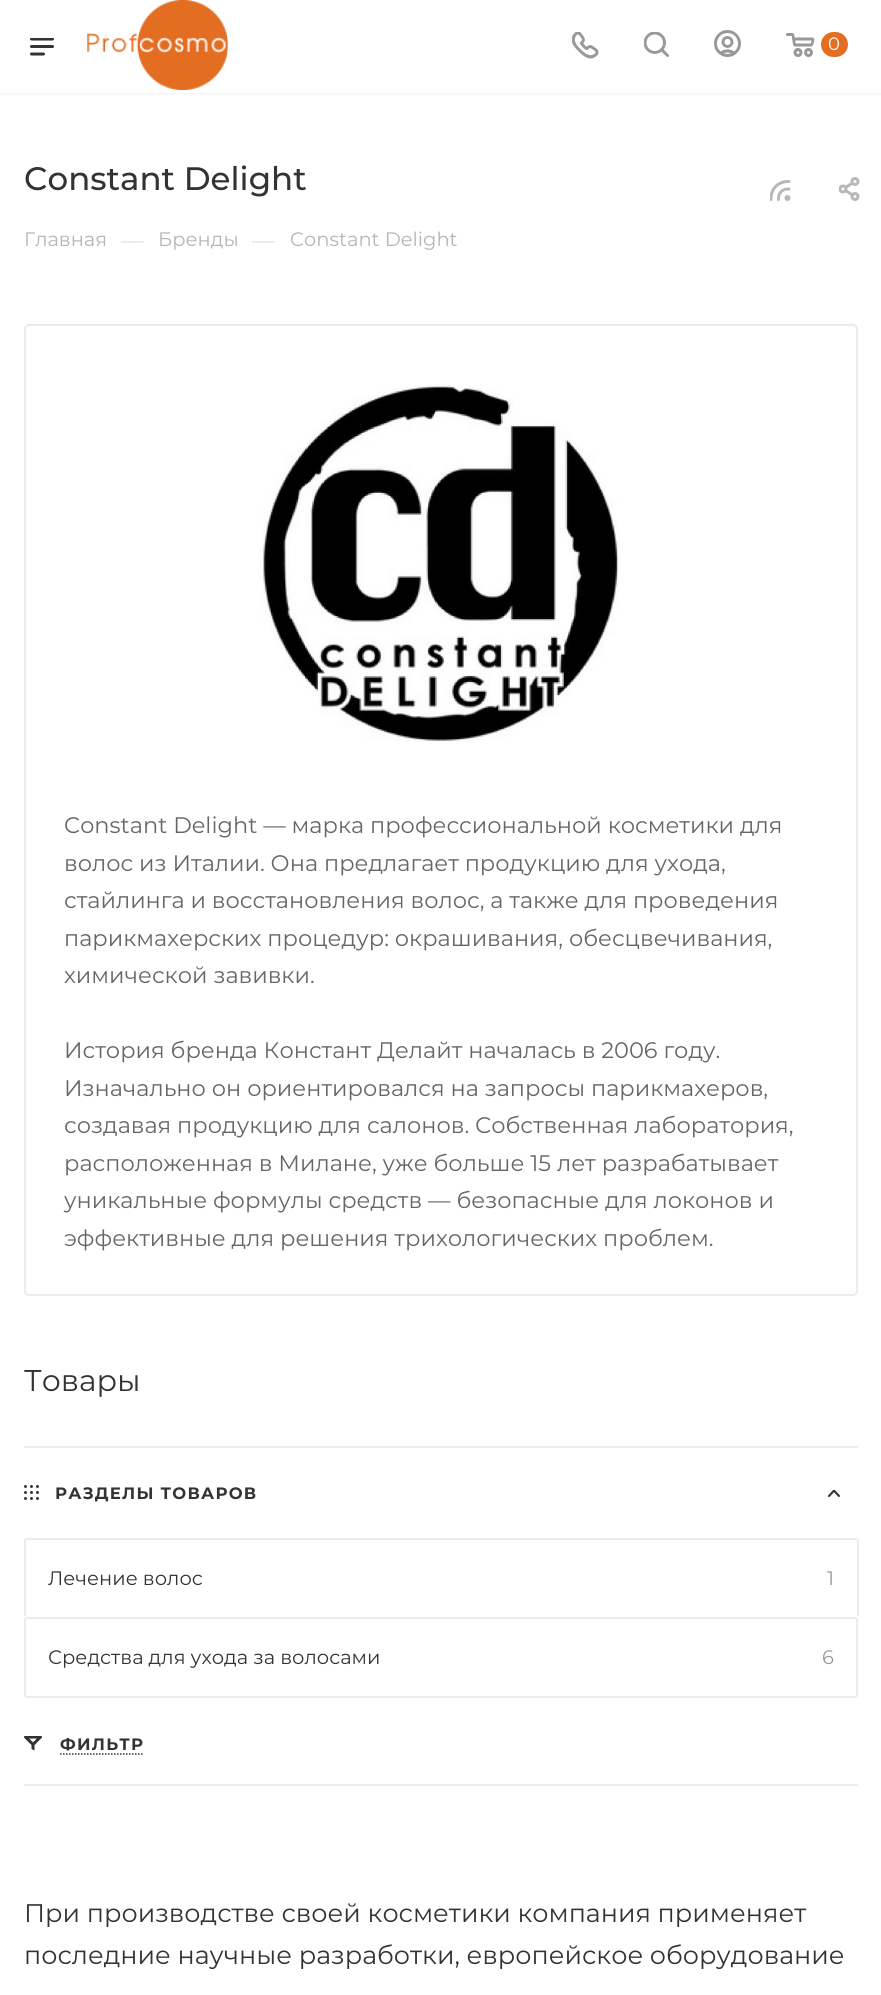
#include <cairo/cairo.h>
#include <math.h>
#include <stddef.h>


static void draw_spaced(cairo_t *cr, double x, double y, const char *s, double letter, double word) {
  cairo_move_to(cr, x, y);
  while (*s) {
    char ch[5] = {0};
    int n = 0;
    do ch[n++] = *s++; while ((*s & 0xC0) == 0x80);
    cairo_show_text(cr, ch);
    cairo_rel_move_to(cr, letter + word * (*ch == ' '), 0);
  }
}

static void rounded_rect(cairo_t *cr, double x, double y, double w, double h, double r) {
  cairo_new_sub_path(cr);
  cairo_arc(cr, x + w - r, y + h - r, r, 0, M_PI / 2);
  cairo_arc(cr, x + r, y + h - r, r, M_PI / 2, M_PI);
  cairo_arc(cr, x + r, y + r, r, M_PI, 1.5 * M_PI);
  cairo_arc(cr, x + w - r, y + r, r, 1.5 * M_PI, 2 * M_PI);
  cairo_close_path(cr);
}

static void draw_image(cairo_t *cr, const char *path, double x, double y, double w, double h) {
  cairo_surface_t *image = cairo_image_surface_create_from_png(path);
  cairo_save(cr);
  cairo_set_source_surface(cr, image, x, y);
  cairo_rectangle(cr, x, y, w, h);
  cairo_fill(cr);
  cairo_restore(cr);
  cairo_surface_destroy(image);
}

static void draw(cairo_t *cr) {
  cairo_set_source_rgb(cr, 1, 1, 1);
  cairo_paint(cr);
  cairo_set_source_rgb(cr, 248 / 255.0, 248 / 255.0, 248 / 255.0);
  cairo_rectangle(cr, 0, 93, 881, 2);
  cairo_fill(cr);
  draw_image(cr, "images/1.png", 30, 38, 24, 18);
  draw_image(cr, "images/2.png", 87, 0, 141, 90);
  draw_image(cr, "images/3.png", 572, 32, 27, 27);
  draw_image(cr, "images/4.png", 644, 32, 25, 25);
  draw_image(cr, "images/5.png", 714, 30, 27, 27);
  draw_image(cr, "images/6.png", 786, 33, 29, 24);
  cairo_set_source_rgb(cr, 227 / 255.0, 109 / 255.0, 33 / 255.0);
  rounded_rect(cr, 821, 32, 27, 25, 12.5);
  cairo_fill(cr);
  draw_image(cr, "images/7.png", 770, 180, 21, 21);
  draw_image(cr, "images/8.png", 839, 177, 21, 24);
  rounded_rect(cr, 25, 325, 832, 970, 4);
  cairo_set_source_rgb(cr, 236 / 255.0, 236 / 255.0, 236 / 255.0);
  cairo_stroke(cr);
  draw_image(cr, "images/9.png", 262, 385, 357, 357);
  cairo_rectangle(cr, 24, 1446, 834, 2);
  cairo_fill(cr);
  draw_image(cr, "images/10.png", 24, 1485, 15, 15);
  draw_image(cr, "images/11.png", 828, 1490, 12, 7);
  cairo_rectangle(cr, 26, 1538, 831, 2);
  cairo_fill(cr);
  cairo_rectangle(cr, 857, 1539, 2, 77);
  cairo_fill(cr);
  cairo_rectangle(cr, 24, 1539, 2, 77);
  cairo_fill(cr);
  rounded_rect(cr, 25, 1618, 832, 79, 2);
  cairo_stroke(cr);
  cairo_rectangle(cr, 24, 1784, 834, 2);
  cairo_fill(cr);
  draw_image(cr, "images/12.png", 24, 1736, 18, 15);
  cairo_new_path(cr);
  cairo_move_to(cr, 60, 1754);
  cairo_line_to(cr, 144, 1754);
  cairo_set_source_rgb(cr, 51 / 255.0, 51 / 255.0, 51 / 255.0);
  cairo_set_line_width(cr, 1.5);
  cairo_set_dash(cr, (double[]){1.5, 1.5}, 2, 0);
  cairo_stroke(cr);
  cairo_select_font_face(cr, "Montserrat", CAIRO_FONT_SLANT_NORMAL, CAIRO_FONT_WEIGHT_NORMAL);
  cairo_set_font_size(cr, 18);
  cairo_set_source_rgb(cr, 1, 1, 1);
  cairo_move_to(cr, 828, 50);
  cairo_show_text(cr, "0");
  cairo_select_font_face(cr, "Montserrat Medium", CAIRO_FONT_SLANT_NORMAL, CAIRO_FONT_WEIGHT_NORMAL);
  cairo_set_font_size(cr, 32.5);
  cairo_set_source_rgb(cr, 51 / 255.0, 51 / 255.0, 51 / 255.0);
  cairo_move_to(cr, 24, 190);
  cairo_show_text(cr, "Constant Delight");
  cairo_select_font_face(cr, "Montserrat", CAIRO_FONT_SLANT_NORMAL, CAIRO_FONT_WEIGHT_NORMAL);
  cairo_set_font_size(cr, 19.5);
  cairo_set_source_rgb(cr, 182 / 255.0, 181 / 255.0, 181 / 255.0);
  cairo_move_to(cr, 24, 246);
  cairo_show_text(cr, "Главная");
  cairo_set_font_size(cr, 22.5);
  cairo_set_source_rgb(cr, 221 / 255.0, 221 / 255.0, 221 / 255.0);
  cairo_move_to(cr, 121, 248);
  cairo_show_text(cr, "—");
  cairo_set_font_size(cr, 19.5);
  cairo_set_source_rgb(cr, 182 / 255.0, 181 / 255.0, 181 / 255.0);
  cairo_move_to(cr, 158, 246);
  cairo_show_text(cr, "Бренды");
  cairo_set_font_size(cr, 22.5);
  cairo_set_source_rgb(cr, 221 / 255.0, 221 / 255.0, 221 / 255.0);
  cairo_move_to(cr, 252, 248);
  cairo_show_text(cr, "—");
  cairo_set_font_size(cr, 19.5);
  cairo_set_source_rgb(cr, 182 / 255.0, 181 / 255.0, 181 / 255.0);
  cairo_move_to(cr, 290, 246);
  cairo_show_text(cr, "Constant Delight");
  cairo_set_font_size(cr, 22.5);
  cairo_set_source_rgb(cr, 102 / 255.0, 102 / 255.0, 102 / 255.0);
  cairo_move_to(cr, 64, 833);
  cairo_show_text(cr, "Constant Delight — марка профессиональной косметики для");
  cairo_move_to(cr, 64, 871);
  cairo_show_text(cr, "волос из Италии. Она предлагает продукцию для ухода,");
  cairo_move_to(cr, 64, 908);
  cairo_show_text(cr, "стайлинга и восстановления волос, а также для проведения");
  cairo_move_to(cr, 64, 946);
  cairo_show_text(cr, "парикмахерских процедур: окрашивания, обесцвечивания,");
  cairo_move_to(cr, 64, 983);
  cairo_show_text(cr, "химической завивки.");
  cairo_move_to(cr, 64, 1058);
  cairo_show_text(cr, "История бренда Констант Делайт началась в 2006 году.");
  cairo_move_to(cr, 64, 1096);
  cairo_show_text(cr, "Изначально он ориентировался на запросы парикмахеров,");
  cairo_move_to(cr, 64, 1133);
  cairo_show_text(cr, "создавая продукцию для салонов. Собственная лаборатория,");
  cairo_move_to(cr, 64, 1171);
  cairo_show_text(cr, "расположенная в Милане, уже больше 15 лет разрабатывает");
  cairo_move_to(cr, 64, 1208);
  cairo_show_text(cr, "уникальные формулы средств — безопасные для локонов и");
  cairo_move_to(cr, 64, 1246);
  cairo_show_text(cr, "эффективные для решения трихологических проблем.");
  cairo_set_font_size(cr, 30);
  cairo_set_source_rgb(cr, 51 / 255.0, 51 / 255.0, 51 / 255.0);
  cairo_move_to(cr, 24, 1391);
  cairo_show_text(cr, "Товары");
  cairo_select_font_face(cr, "Montserrat", CAIRO_FONT_SLANT_NORMAL, CAIRO_FONT_WEIGHT_BOLD);
  cairo_set_font_size(cr, 16.5);
  draw_spaced(cr, 55, 1499, "РАЗДЕЛЫ ТОВАРОВ", 1.25, 0);
  cairo_select_font_face(cr, "Montserrat", CAIRO_FONT_SLANT_NORMAL, CAIRO_FONT_WEIGHT_NORMAL);
  cairo_set_font_size(cr, 19.5);
  cairo_move_to(cr, 48, 1585);
  cairo_show_text(cr, "Лечение волос");
  cairo_set_source_rgb(cr, 153 / 255.0, 153 / 255.0, 153 / 255.0);
  cairo_move_to(cr, 827, 1585);
  cairo_show_text(cr, "1");
  cairo_set_source_rgb(cr, 51 / 255.0, 51 / 255.0, 51 / 255.0);
  cairo_move_to(cr, 48, 1664);
  cairo_show_text(cr, "Средства для ухода за волосами");
  cairo_set_source_rgb(cr, 153 / 255.0, 153 / 255.0, 153 / 255.0);
  cairo_move_to(cr, 822, 1664);
  cairo_show_text(cr, "6");
  cairo_select_font_face(cr, "Montserrat", CAIRO_FONT_SLANT_NORMAL, CAIRO_FONT_WEIGHT_BOLD);
  cairo_set_font_size(cr, 16.5);
  cairo_set_source_rgb(cr, 51 / 255.0, 51 / 255.0, 51 / 255.0);
  draw_spaced(cr, 60, 1750, "ФИЛЬТР", 1.25, 0);
  cairo_select_font_face(cr, "Montserrat", CAIRO_FONT_SLANT_NORMAL, CAIRO_FONT_WEIGHT_NORMAL);
  cairo_set_font_size(cr, 25.5);
  cairo_move_to(cr, 24, 1922);
  cairo_show_text(cr, "При производстве своей косметики компания применяет");
  cairo_move_to(cr, 24, 1964);
  cairo_show_text(cr, "последние научные разработки, европейское оборудование");
}

int main(void) {
  cairo_surface_t *surface = cairo_image_surface_create(CAIRO_FORMAT_RGB24, 881, 1995);
  cairo_t *cr = cairo_create(surface);
  cairo_font_options_t *options = cairo_font_options_create();
  cairo_font_options_set_hint_metrics(options, CAIRO_HINT_METRICS_OFF);
  cairo_font_options_set_hint_style(options, CAIRO_HINT_STYLE_NONE);
  cairo_set_font_options(cr, options);
  cairo_set_miter_limit(cr, 4);
  draw(cr);
  cairo_surface_write_to_png(surface, "out.png");
  cairo_font_options_destroy(options);
  cairo_destroy(cr);
  cairo_surface_destroy(surface);
  return 0;
}
